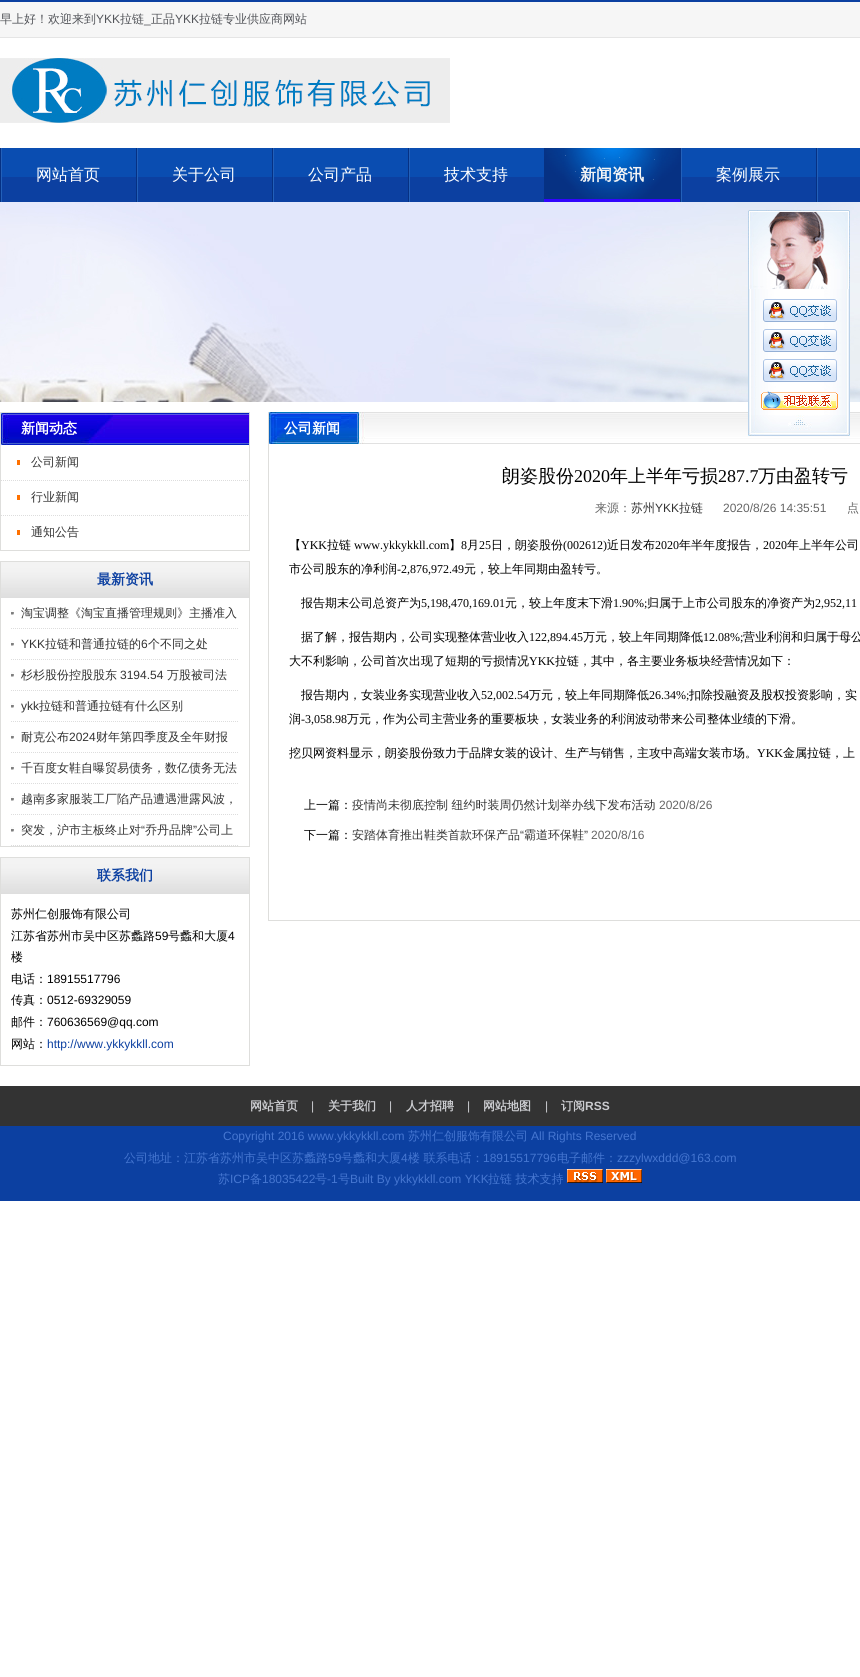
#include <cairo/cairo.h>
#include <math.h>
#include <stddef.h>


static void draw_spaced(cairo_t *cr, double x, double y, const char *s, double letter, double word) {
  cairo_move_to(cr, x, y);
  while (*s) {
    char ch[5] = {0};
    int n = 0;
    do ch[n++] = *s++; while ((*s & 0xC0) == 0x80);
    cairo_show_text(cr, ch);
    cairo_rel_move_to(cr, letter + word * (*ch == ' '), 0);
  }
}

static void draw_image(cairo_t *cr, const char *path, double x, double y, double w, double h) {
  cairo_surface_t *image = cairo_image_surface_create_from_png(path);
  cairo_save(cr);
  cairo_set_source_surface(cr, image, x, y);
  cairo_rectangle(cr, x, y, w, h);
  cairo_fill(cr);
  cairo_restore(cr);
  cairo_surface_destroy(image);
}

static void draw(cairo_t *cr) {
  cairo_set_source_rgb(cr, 1, 1, 1);
  cairo_paint(cr);
  cairo_set_source_rgb(cr, 246 / 255.0, 246 / 255.0, 246 / 255.0);
  cairo_rectangle(cr, 0, 2, 860, 35);
  cairo_fill(cr);
  cairo_set_source_rgb(cr, 12 / 255.0, 64 / 255.0, 161 / 255.0);
  cairo_rectangle(cr, 0, 0, 860, 2);
  cairo_fill(cr);
  cairo_set_source_rgb(cr, 229 / 255.0, 229 / 255.0, 229 / 255.0);
  cairo_rectangle(cr, 0, 37, 860, 1);
  cairo_fill(cr);
  draw_image(cr, "images/1.png", 0, 58, 450, 65);
  draw_image(cr, "images/2.png", 2, 148, 858, 54);
  draw_image(cr, "images/3.png", 0, 148, 2, 54);
  draw_image(cr, "images/3.png", 136, 148, 2, 54);
  draw_image(cr, "images/3.png", 272, 148, 2, 54);
  draw_image(cr, "images/3.png", 408, 148, 2, 54);
  draw_image(cr, "images/4.png", 544, 148, 136, 54);
  draw_image(cr, "images/3.png", 680, 148, 2, 54);
  draw_image(cr, "images/3.png", 816, 148, 2, 54);
  draw_image(cr, "images/10.png", 0, 202, 860, 200);
  draw_image(cr, "images/5.png", 748, 210, 102, 79);
  draw_image(cr, "images/14.png", 269, 412, 591, 32);
  draw_image(cr, "images/6.png", 748, 289, 102, 126);
  draw_image(cr, "images/7.png", 763, 299, 74, 23);
  draw_image(cr, "images/7.png", 763, 329, 74, 23);
  draw_image(cr, "images/7.png", 763, 359, 74, 23);
  draw_image(cr, "images/8.png", 761, 391, 77, 19);
  draw_image(cr, "images/9.png", 748, 415, 102, 21);
  cairo_rectangle(cr, 0.5, 412.5, 249, 138);
  cairo_set_source_rgb(cr, 222 / 255.0, 222 / 255.0, 220 / 255.0);
  cairo_set_line_width(cr, 1);
  cairo_stroke(cr);
  draw_image(cr, "images/11.png", 1, 413, 248, 32);
  cairo_set_source_rgb(cr, 1, 113 / 255.0, 0);
  cairo_rectangle(cr, 17, 460, 3, 5);
  cairo_fill(cr);
  cairo_new_path(cr);
  cairo_move_to(cr, 1, 480.5);
  cairo_line_to(cr, 249, 480.5);
  cairo_set_source_rgb(cr, 221 / 255.0, 221 / 255.0, 221 / 255.0);
  cairo_set_dash(cr, (double[]){1, 1}, 2, 0);
  cairo_stroke(cr);
  cairo_set_source_rgb(cr, 1, 113 / 255.0, 0);
  cairo_rectangle(cr, 17, 495, 3, 5);
  cairo_fill(cr);
  cairo_new_path(cr);
  cairo_move_to(cr, 1, 515.5);
  cairo_line_to(cr, 249, 515.5);
  cairo_set_source_rgb(cr, 221 / 255.0, 221 / 255.0, 221 / 255.0);
  cairo_stroke(cr);
  cairo_set_source_rgb(cr, 1, 113 / 255.0, 0);
  cairo_rectangle(cr, 17, 530, 3, 5);
  cairo_fill(cr);
  cairo_rectangle(cr, 0.5, 561.5, 249, 285);
  cairo_set_source_rgb(cr, 222 / 255.0, 222 / 255.0, 220 / 255.0);
  cairo_set_dash(cr, NULL, 0, 0);
  cairo_stroke(cr);
  draw_image(cr, "images/12.png", 1, 562, 248, 36);
  draw_image(cr, "images/13.png", 11, 610, 3, 5);
  cairo_new_path(cr);
  cairo_move_to(cr, 11, 628.5);
  cairo_line_to(cr, 239, 628.5);
  cairo_set_source_rgb(cr, 221 / 255.0, 221 / 255.0, 221 / 255.0);
  cairo_set_dash(cr, (double[]){1, 1}, 2, 0);
  cairo_stroke(cr);
  draw_image(cr, "images/13.png", 11, 641, 3, 5);
  cairo_new_path(cr);
  cairo_move_to(cr, 11, 659.5);
  cairo_line_to(cr, 239, 659.5);
  cairo_stroke(cr);
  draw_image(cr, "images/13.png", 11, 672, 3, 5);
  cairo_new_path(cr);
  cairo_move_to(cr, 11, 690.5);
  cairo_line_to(cr, 239, 690.5);
  cairo_stroke(cr);
  draw_image(cr, "images/13.png", 11, 703, 3, 5);
  cairo_new_path(cr);
  cairo_move_to(cr, 11, 721.5);
  cairo_line_to(cr, 239, 721.5);
  cairo_stroke(cr);
  draw_image(cr, "images/13.png", 11, 734, 3, 5);
  cairo_new_path(cr);
  cairo_move_to(cr, 11, 752.5);
  cairo_line_to(cr, 239, 752.5);
  cairo_stroke(cr);
  draw_image(cr, "images/13.png", 11, 765, 3, 5);
  cairo_new_path(cr);
  cairo_move_to(cr, 11, 783.5);
  cairo_line_to(cr, 239, 783.5);
  cairo_stroke(cr);
  draw_image(cr, "images/13.png", 11, 796, 3, 5);
  cairo_new_path(cr);
  cairo_move_to(cr, 11, 814.5);
  cairo_line_to(cr, 239, 814.5);
  cairo_stroke(cr);
  draw_image(cr, "images/13.png", 11, 827, 3, 5);
  cairo_new_path(cr);
  cairo_move_to(cr, 11, 845.5);
  cairo_line_to(cr, 239, 845.5);
  cairo_stroke(cr);
  cairo_rectangle(cr, 0.5, 857.5, 249, 208);
  cairo_set_source_rgb(cr, 222 / 255.0, 222 / 255.0, 220 / 255.0);
  cairo_set_dash(cr, NULL, 0, 0);
  cairo_stroke(cr);
  draw_image(cr, "images/12.png", 1, 858, 248, 36);
  cairo_rectangle(cr, 268, 920, 592, 1);
  cairo_fill(cr);
  cairo_rectangle(cr, 268, 412, 1, 509);
  cairo_fill(cr);
  cairo_set_source_rgb(cr, 12 / 255.0, 64 / 255.0, 161 / 255.0);
  cairo_rectangle(cr, 0, 1126, 860, 75);
  cairo_fill(cr);
  cairo_set_source_rgb(cr, 51 / 255.0, 51 / 255.0, 51 / 255.0);
  cairo_rectangle(cr, 0, 1086, 860, 40);
  cairo_fill(cr);
  draw_image(cr, "images/15.png", 567, 1169, 36, 14);
  draw_image(cr, "images/16.png", 606, 1169, 36, 14);
  cairo_select_font_face(cr, "WenQuanYi Zen Hei Medium", CAIRO_FONT_SLANT_NORMAL, CAIRO_FONT_WEIGHT_NORMAL);
  cairo_set_font_size(cr, 12);
  cairo_set_source_rgb(cr, 83 / 255.0, 85 / 255.0, 90 / 255.0);
  cairo_move_to(cr, 0, 23);
  cairo_show_text(cr, "早上好！欢迎来到");
  cairo_select_font_face(cr, "Liberation Sans", CAIRO_FONT_SLANT_NORMAL, CAIRO_FONT_WEIGHT_NORMAL);
  cairo_move_to(cr, 96, 23);
  cairo_show_text(cr, "YKK");
  cairo_select_font_face(cr, "WenQuanYi Zen Hei Medium", CAIRO_FONT_SLANT_NORMAL, CAIRO_FONT_WEIGHT_NORMAL);
  cairo_move_to(cr, 120, 23);
  cairo_show_text(cr, "拉链");
  cairo_select_font_face(cr, "Liberation Sans", CAIRO_FONT_SLANT_NORMAL, CAIRO_FONT_WEIGHT_NORMAL);
  cairo_move_to(cr, 175, 23);
  cairo_show_text(cr, "YKK");
  cairo_select_font_face(cr, "WenQuanYi Zen Hei Medium", CAIRO_FONT_SLANT_NORMAL, CAIRO_FONT_WEIGHT_NORMAL);
  cairo_move_to(cr, 199, 23);
  cairo_show_text(cr, "拉链专业供应商网站");
  cairo_select_font_face(cr, "Liberation Sans", CAIRO_FONT_SLANT_NORMAL, CAIRO_FONT_WEIGHT_NORMAL);
  cairo_move_to(cr, 144, 23);
  cairo_show_text(cr, "_");
  cairo_select_font_face(cr, "WenQuanYi Zen Hei Medium", CAIRO_FONT_SLANT_NORMAL, CAIRO_FONT_WEIGHT_NORMAL);
  cairo_move_to(cr, 151, 23);
  cairo_show_text(cr, "正品");
  cairo_set_font_size(cr, 16);
  cairo_set_source_rgb(cr, 1, 1, 1);
  cairo_move_to(cr, 36, 180);
  cairo_show_text(cr, "网站首页");
  cairo_move_to(cr, 172, 180);
  cairo_show_text(cr, "关于公司");
  cairo_move_to(cr, 308, 180);
  cairo_show_text(cr, "公司产品");
  cairo_move_to(cr, 444, 180);
  cairo_show_text(cr, "技术支持");
  cairo_select_font_face(cr, "WenQuanYi Zen Hei", CAIRO_FONT_SLANT_NORMAL, CAIRO_FONT_WEIGHT_BOLD);
  cairo_set_source_rgb(cr, 245 / 255.0, 245 / 255.0, 245 / 255.0);
  cairo_move_to(cr, 580, 180);
  cairo_show_text(cr, "新闻资讯");
  cairo_select_font_face(cr, "WenQuanYi Zen Hei Medium", CAIRO_FONT_SLANT_NORMAL, CAIRO_FONT_WEIGHT_NORMAL);
  cairo_set_source_rgb(cr, 1, 1, 1);
  cairo_move_to(cr, 716, 180);
  cairo_show_text(cr, "案例展示");
  cairo_select_font_face(cr, "WenQuanYi Zen Hei", CAIRO_FONT_SLANT_NORMAL, CAIRO_FONT_WEIGHT_BOLD);
  cairo_set_font_size(cr, 14);
  cairo_move_to(cr, 21, 433);
  cairo_show_text(cr, "新闻动态");
  cairo_select_font_face(cr, "WenQuanYi Zen Hei Medium", CAIRO_FONT_SLANT_NORMAL, CAIRO_FONT_WEIGHT_NORMAL);
  cairo_set_font_size(cr, 12);
  cairo_set_source_rgb(cr, 51 / 255.0, 51 / 255.0, 51 / 255.0);
  cairo_move_to(cr, 31, 466);
  cairo_show_text(cr, "公司新闻");
  cairo_move_to(cr, 31, 501);
  cairo_show_text(cr, "行业新闻");
  cairo_move_to(cr, 31, 536);
  cairo_show_text(cr, "通知公告");
  cairo_select_font_face(cr, "WenQuanYi Zen Hei", CAIRO_FONT_SLANT_NORMAL, CAIRO_FONT_WEIGHT_BOLD);
  cairo_set_font_size(cr, 14);
  cairo_set_source_rgb(cr, 12 / 255.0, 64 / 255.0, 161 / 255.0);
  cairo_move_to(cr, 97, 584);
  cairo_show_text(cr, "最新资讯");
  cairo_select_font_face(cr, "WenQuanYi Zen Hei Medium", CAIRO_FONT_SLANT_NORMAL, CAIRO_FONT_WEIGHT_NORMAL);
  cairo_set_font_size(cr, 12);
  cairo_set_source_rgb(cr, 51 / 255.0, 51 / 255.0, 51 / 255.0);
  cairo_move_to(cr, 21, 617);
  cairo_show_text(cr, "淘宝调整《淘宝直播管理规则》主播准入");
  cairo_select_font_face(cr, "Liberation Sans", CAIRO_FONT_SLANT_NORMAL, CAIRO_FONT_WEIGHT_NORMAL);
  cairo_move_to(cr, 21, 648);
  cairo_show_text(cr, "YKK");
  cairo_select_font_face(cr, "WenQuanYi Zen Hei Medium", CAIRO_FONT_SLANT_NORMAL, CAIRO_FONT_WEIGHT_NORMAL);
  cairo_move_to(cr, 45, 648);
  cairo_show_text(cr, "拉链和普通拉链的");
  cairo_select_font_face(cr, "Liberation Sans", CAIRO_FONT_SLANT_NORMAL, CAIRO_FONT_WEIGHT_NORMAL);
  cairo_move_to(cr, 141, 648);
  cairo_show_text(cr, "6");
  cairo_select_font_face(cr, "WenQuanYi Zen Hei Medium", CAIRO_FONT_SLANT_NORMAL, CAIRO_FONT_WEIGHT_NORMAL);
  cairo_move_to(cr, 148, 648);
  cairo_show_text(cr, "个不同之处");
  cairo_move_to(cr, 21, 679);
  cairo_show_text(cr, "杉杉股份控股股东");
  cairo_select_font_face(cr, "Liberation Sans", CAIRO_FONT_SLANT_NORMAL, CAIRO_FONT_WEIGHT_NORMAL);
  cairo_move_to(cr, 120, 679);
  cairo_show_text(cr, "3194.54");
  cairo_select_font_face(cr, "WenQuanYi Zen Hei Medium", CAIRO_FONT_SLANT_NORMAL, CAIRO_FONT_WEIGHT_NORMAL);
  cairo_move_to(cr, 167, 679);
  cairo_show_text(cr, "万股被司法");
  cairo_select_font_face(cr, "Liberation Sans", CAIRO_FONT_SLANT_NORMAL, CAIRO_FONT_WEIGHT_NORMAL);
  cairo_move_to(cr, 21, 710);
  cairo_show_text(cr, "ykk");
  cairo_select_font_face(cr, "WenQuanYi Zen Hei Medium", CAIRO_FONT_SLANT_NORMAL, CAIRO_FONT_WEIGHT_NORMAL);
  cairo_move_to(cr, 39, 710);
  cairo_show_text(cr, "拉链和普通拉链有什么区别");
  cairo_move_to(cr, 21, 741);
  cairo_show_text(cr, "耐克公布");
  cairo_select_font_face(cr, "Liberation Sans", CAIRO_FONT_SLANT_NORMAL, CAIRO_FONT_WEIGHT_NORMAL);
  cairo_move_to(cr, 69, 741);
  cairo_show_text(cr, "2024");
  cairo_select_font_face(cr, "WenQuanYi Zen Hei Medium", CAIRO_FONT_SLANT_NORMAL, CAIRO_FONT_WEIGHT_NORMAL);
  cairo_move_to(cr, 96, 741);
  cairo_show_text(cr, "财年第四季度及全年财报");
  cairo_move_to(cr, 21, 772);
  cairo_show_text(cr, "千百度女鞋自曝贸易债务，数亿债务无法");
  cairo_move_to(cr, 21, 803);
  cairo_show_text(cr, "越南多家服装工厂陷产品遭遇泄露风波，");
  cairo_move_to(cr, 21, 834);
  cairo_show_text(cr, "突发，沪市主板终止对");
  cairo_select_font_face(cr, "Liberation Sans", CAIRO_FONT_SLANT_NORMAL, CAIRO_FONT_WEIGHT_NORMAL);
  cairo_move_to(cr, 141, 834);
  cairo_show_text(cr, "“");
  cairo_select_font_face(cr, "WenQuanYi Zen Hei Medium", CAIRO_FONT_SLANT_NORMAL, CAIRO_FONT_WEIGHT_NORMAL);
  cairo_move_to(cr, 145, 834);
  cairo_show_text(cr, "乔丹品牌");
  cairo_select_font_face(cr, "Liberation Sans", CAIRO_FONT_SLANT_NORMAL, CAIRO_FONT_WEIGHT_NORMAL);
  cairo_move_to(cr, 193, 834);
  cairo_show_text(cr, "”");
  cairo_select_font_face(cr, "WenQuanYi Zen Hei Medium", CAIRO_FONT_SLANT_NORMAL, CAIRO_FONT_WEIGHT_NORMAL);
  cairo_move_to(cr, 197, 834);
  cairo_show_text(cr, "公司上");
  cairo_select_font_face(cr, "WenQuanYi Zen Hei", CAIRO_FONT_SLANT_NORMAL, CAIRO_FONT_WEIGHT_BOLD);
  cairo_set_font_size(cr, 14);
  cairo_set_source_rgb(cr, 12 / 255.0, 64 / 255.0, 161 / 255.0);
  cairo_move_to(cr, 97, 880);
  cairo_show_text(cr, "联系我们");
  cairo_select_font_face(cr, "WenQuanYi Zen Hei Medium", CAIRO_FONT_SLANT_NORMAL, CAIRO_FONT_WEIGHT_NORMAL);
  cairo_set_font_size(cr, 12);
  cairo_set_source_rgb(cr, 0, 0, 0);
  cairo_move_to(cr, 11, 918);
  cairo_show_text(cr, "苏州仁创服饰有限公司");
  cairo_move_to(cr, 11, 940);
  cairo_show_text(cr, "江苏省苏州市吴中区苏蠡路");
  cairo_select_font_face(cr, "Liberation Sans", CAIRO_FONT_SLANT_NORMAL, CAIRO_FONT_WEIGHT_NORMAL);
  cairo_move_to(cr, 155, 940);
  cairo_show_text(cr, "59");
  cairo_select_font_face(cr, "WenQuanYi Zen Hei Medium", CAIRO_FONT_SLANT_NORMAL, CAIRO_FONT_WEIGHT_NORMAL);
  cairo_move_to(cr, 168, 940);
  cairo_show_text(cr, "号蠡和大厦");
  cairo_select_font_face(cr, "Liberation Sans", CAIRO_FONT_SLANT_NORMAL, CAIRO_FONT_WEIGHT_NORMAL);
  cairo_move_to(cr, 228, 940);
  cairo_show_text(cr, "4");
  cairo_select_font_face(cr, "WenQuanYi Zen Hei Medium", CAIRO_FONT_SLANT_NORMAL, CAIRO_FONT_WEIGHT_NORMAL);
  cairo_move_to(cr, 11, 961);
  cairo_show_text(cr, "楼");
  cairo_move_to(cr, 11, 983);
  cairo_show_text(cr, "电话：");
  cairo_select_font_face(cr, "Liberation Sans", CAIRO_FONT_SLANT_NORMAL, CAIRO_FONT_WEIGHT_NORMAL);
  cairo_move_to(cr, 47, 983);
  cairo_show_text(cr, "18915517796");
  cairo_select_font_face(cr, "WenQuanYi Zen Hei Medium", CAIRO_FONT_SLANT_NORMAL, CAIRO_FONT_WEIGHT_NORMAL);
  cairo_move_to(cr, 11, 1004);
  cairo_show_text(cr, "传真：");
  cairo_select_font_face(cr, "Liberation Sans", CAIRO_FONT_SLANT_NORMAL, CAIRO_FONT_WEIGHT_NORMAL);
  cairo_move_to(cr, 47, 1004);
  cairo_show_text(cr, "0512-69329059");
  cairo_select_font_face(cr, "WenQuanYi Zen Hei Medium", CAIRO_FONT_SLANT_NORMAL, CAIRO_FONT_WEIGHT_NORMAL);
  cairo_move_to(cr, 11, 1026);
  cairo_show_text(cr, "邮件：");
  cairo_select_font_face(cr, "Liberation Sans", CAIRO_FONT_SLANT_NORMAL, CAIRO_FONT_WEIGHT_NORMAL);
  cairo_move_to(cr, 47, 1026);
  cairo_show_text(cr, "760636569@qq.com");
  cairo_select_font_face(cr, "WenQuanYi Zen Hei Medium", CAIRO_FONT_SLANT_NORMAL, CAIRO_FONT_WEIGHT_NORMAL);
  cairo_move_to(cr, 11, 1048);
  cairo_show_text(cr, "网站：");
  cairo_select_font_face(cr, "Liberation Sans", CAIRO_FONT_SLANT_NORMAL, CAIRO_FONT_WEIGHT_NORMAL);
  cairo_set_source_rgb(cr, 12 / 255.0, 64 / 255.0, 161 / 255.0);
  cairo_move_to(cr, 47, 1048);
  cairo_show_text(cr, "http://www.ykkykkll.com");
  cairo_select_font_face(cr, "WenQuanYi Zen Hei", CAIRO_FONT_SLANT_NORMAL, CAIRO_FONT_WEIGHT_BOLD);
  cairo_set_font_size(cr, 14);
  cairo_set_source_rgb(cr, 1, 1, 1);
  cairo_move_to(cr, 284, 433);
  cairo_show_text(cr, "公司新闻");
  cairo_select_font_face(cr, "WenQuanYi Zen Hei Medium", CAIRO_FONT_SLANT_NORMAL, CAIRO_FONT_WEIGHT_NORMAL);
  cairo_set_font_size(cr, 18);
  cairo_set_source_rgb(cr, 0, 0, 0);
  cairo_move_to(cr, 502, 482);
  cairo_show_text(cr, "朗姿股份");
  cairo_select_font_face(cr, "Liberation Serif", CAIRO_FONT_SLANT_NORMAL, CAIRO_FONT_WEIGHT_NORMAL);
  cairo_move_to(cr, 574, 482);
  cairo_show_text(cr, "2020");
  cairo_select_font_face(cr, "WenQuanYi Zen Hei Medium", CAIRO_FONT_SLANT_NORMAL, CAIRO_FONT_WEIGHT_NORMAL);
  cairo_move_to(cr, 610, 482);
  cairo_show_text(cr, "年上半年亏损");
  cairo_select_font_face(cr, "Liberation Serif", CAIRO_FONT_SLANT_NORMAL, CAIRO_FONT_WEIGHT_NORMAL);
  cairo_move_to(cr, 718, 482);
  cairo_show_text(cr, "287.7");
  cairo_select_font_face(cr, "WenQuanYi Zen Hei Medium", CAIRO_FONT_SLANT_NORMAL, CAIRO_FONT_WEIGHT_NORMAL);
  draw_spaced(cr, 758, 482, "万由盈转亏", 0, -1);
  cairo_set_font_size(cr, 12);
  cairo_set_source_rgb(cr, 102 / 255.0, 102 / 255.0, 102 / 255.0);
  cairo_move_to(cr, 595, 512);
  cairo_show_text(cr, "来源：");
  cairo_set_source_rgb(cr, 51 / 255.0, 51 / 255.0, 51 / 255.0);
  cairo_move_to(cr, 631, 512);
  cairo_show_text(cr, "苏州");
  cairo_select_font_face(cr, "Liberation Sans", CAIRO_FONT_SLANT_NORMAL, CAIRO_FONT_WEIGHT_NORMAL);
  cairo_move_to(cr, 655, 512);
  cairo_show_text(cr, "YKK");
  cairo_select_font_face(cr, "WenQuanYi Zen Hei Medium", CAIRO_FONT_SLANT_NORMAL, CAIRO_FONT_WEIGHT_NORMAL);
  cairo_move_to(cr, 679, 512);
  cairo_show_text(cr, "拉链");
  cairo_select_font_face(cr, "Liberation Sans", CAIRO_FONT_SLANT_NORMAL, CAIRO_FONT_WEIGHT_NORMAL);
  cairo_set_source_rgb(cr, 102 / 255.0, 102 / 255.0, 102 / 255.0);
  cairo_move_to(cr, 723, 512);
  cairo_show_text(cr, "2020/8/26 14:35:51");
  cairo_select_font_face(cr, "WenQuanYi Zen Hei Medium", CAIRO_FONT_SLANT_NORMAL, CAIRO_FONT_WEIGHT_NORMAL);
  cairo_move_to(cr, 847, 512);
  cairo_show_text(cr, "点");
  cairo_set_source_rgb(cr, 0, 0, 0);
  cairo_move_to(cr, 289, 549);
  cairo_show_text(cr, "【");
  cairo_select_font_face(cr, "Liberation Serif", CAIRO_FONT_SLANT_NORMAL, CAIRO_FONT_WEIGHT_NORMAL);
  cairo_move_to(cr, 301, 549);
  cairo_show_text(cr, "YKK");
  cairo_select_font_face(cr, "WenQuanYi Zen Hei Medium", CAIRO_FONT_SLANT_NORMAL, CAIRO_FONT_WEIGHT_NORMAL);
  cairo_move_to(cr, 327, 549);
  cairo_show_text(cr, "拉链");
  cairo_select_font_face(cr, "Liberation Serif", CAIRO_FONT_SLANT_NORMAL, CAIRO_FONT_WEIGHT_NORMAL);
  cairo_move_to(cr, 354, 549);
  cairo_show_text(cr, "www.ykkykkll.com");
  cairo_select_font_face(cr, "WenQuanYi Zen Hei Medium", CAIRO_FONT_SLANT_NORMAL, CAIRO_FONT_WEIGHT_NORMAL);
  cairo_move_to(cr, 449, 549);
  cairo_show_text(cr, "】");
  cairo_select_font_face(cr, "Liberation Serif", CAIRO_FONT_SLANT_NORMAL, CAIRO_FONT_WEIGHT_NORMAL);
  cairo_move_to(cr, 461, 549);
  cairo_show_text(cr, "8");
  cairo_select_font_face(cr, "WenQuanYi Zen Hei Medium", CAIRO_FONT_SLANT_NORMAL, CAIRO_FONT_WEIGHT_NORMAL);
  cairo_move_to(cr, 467, 549);
  cairo_show_text(cr, "月");
  cairo_select_font_face(cr, "Liberation Serif", CAIRO_FONT_SLANT_NORMAL, CAIRO_FONT_WEIGHT_NORMAL);
  cairo_move_to(cr, 479, 549);
  cairo_show_text(cr, "25");
  cairo_select_font_face(cr, "WenQuanYi Zen Hei Medium", CAIRO_FONT_SLANT_NORMAL, CAIRO_FONT_WEIGHT_NORMAL);
  cairo_move_to(cr, 491, 549);
  cairo_show_text(cr, "日，朗姿股份");
  cairo_select_font_face(cr, "Liberation Serif", CAIRO_FONT_SLANT_NORMAL, CAIRO_FONT_WEIGHT_NORMAL);
  cairo_move_to(cr, 563, 549);
  cairo_show_text(cr, "(002612)");
  cairo_select_font_face(cr, "WenQuanYi Zen Hei Medium", CAIRO_FONT_SLANT_NORMAL, CAIRO_FONT_WEIGHT_NORMAL);
  cairo_move_to(cr, 607, 549);
  cairo_show_text(cr, "近日发布");
  cairo_select_font_face(cr, "Liberation Serif", CAIRO_FONT_SLANT_NORMAL, CAIRO_FONT_WEIGHT_NORMAL);
  cairo_move_to(cr, 655, 549);
  cairo_show_text(cr, "2020");
  cairo_select_font_face(cr, "WenQuanYi Zen Hei Medium", CAIRO_FONT_SLANT_NORMAL, CAIRO_FONT_WEIGHT_NORMAL);
  cairo_move_to(cr, 679, 549);
  cairo_show_text(cr, "年半年度报告，");
  cairo_select_font_face(cr, "Liberation Serif", CAIRO_FONT_SLANT_NORMAL, CAIRO_FONT_WEIGHT_NORMAL);
  cairo_move_to(cr, 763, 549);
  cairo_show_text(cr, "2020");
  cairo_select_font_face(cr, "WenQuanYi Zen Hei Medium", CAIRO_FONT_SLANT_NORMAL, CAIRO_FONT_WEIGHT_NORMAL);
  cairo_move_to(cr, 787, 549);
  cairo_show_text(cr, "年上半年公司");
  cairo_move_to(cr, 289, 573);
  cairo_show_text(cr, "市公司股东的净利润");
  cairo_select_font_face(cr, "Liberation Serif", CAIRO_FONT_SLANT_NORMAL, CAIRO_FONT_WEIGHT_NORMAL);
  cairo_move_to(cr, 397, 573);
  cairo_show_text(cr, "-2,876,972.49");
  cairo_select_font_face(cr, "WenQuanYi Zen Hei Medium", CAIRO_FONT_SLANT_NORMAL, CAIRO_FONT_WEIGHT_NORMAL);
  cairo_move_to(cr, 464, 573);
  cairo_show_text(cr, "元，较上年同期由盈转亏。");
  cairo_move_to(cr, 301, 607);
  cairo_show_text(cr, "报告期末公司总资产为");
  cairo_select_font_face(cr, "Liberation Serif", CAIRO_FONT_SLANT_NORMAL, CAIRO_FONT_WEIGHT_NORMAL);
  cairo_move_to(cr, 421, 607);
  cairo_show_text(cr, "5,198,470,169.01");
  cairo_select_font_face(cr, "WenQuanYi Zen Hei Medium", CAIRO_FONT_SLANT_NORMAL, CAIRO_FONT_WEIGHT_NORMAL);
  cairo_move_to(cr, 505, 607);
  cairo_show_text(cr, "元，较上年度末下滑");
  cairo_select_font_face(cr, "Liberation Serif", CAIRO_FONT_SLANT_NORMAL, CAIRO_FONT_WEIGHT_NORMAL);
  cairo_move_to(cr, 613, 607);
  cairo_show_text(cr, "1.90%;");
  cairo_select_font_face(cr, "WenQuanYi Zen Hei Medium", CAIRO_FONT_SLANT_NORMAL, CAIRO_FONT_WEIGHT_NORMAL);
  cairo_move_to(cr, 647, 607);
  cairo_show_text(cr, "归属于上市公司股东的净资产为");
  cairo_select_font_face(cr, "Liberation Serif", CAIRO_FONT_SLANT_NORMAL, CAIRO_FONT_WEIGHT_NORMAL);
  cairo_move_to(cr, 815, 607);
  cairo_show_text(cr, "2,952,11");
  cairo_select_font_face(cr, "WenQuanYi Zen Hei Medium", CAIRO_FONT_SLANT_NORMAL, CAIRO_FONT_WEIGHT_NORMAL);
  cairo_move_to(cr, 301, 641);
  cairo_show_text(cr, "据了解，报告期内，公司实现整体营业收入");
  cairo_select_font_face(cr, "Liberation Serif", CAIRO_FONT_SLANT_NORMAL, CAIRO_FONT_WEIGHT_NORMAL);
  cairo_move_to(cr, 529, 641);
  cairo_show_text(cr, "122,894.45");
  cairo_select_font_face(cr, "WenQuanYi Zen Hei Medium", CAIRO_FONT_SLANT_NORMAL, CAIRO_FONT_WEIGHT_NORMAL);
  cairo_move_to(cr, 583, 641);
  cairo_show_text(cr, "万元，较上年同期降低");
  cairo_select_font_face(cr, "Liberation Serif", CAIRO_FONT_SLANT_NORMAL, CAIRO_FONT_WEIGHT_NORMAL);
  cairo_move_to(cr, 703, 641);
  cairo_show_text(cr, "12.08%;");
  cairo_select_font_face(cr, "WenQuanYi Zen Hei Medium", CAIRO_FONT_SLANT_NORMAL, CAIRO_FONT_WEIGHT_NORMAL);
  cairo_move_to(cr, 743, 641);
  cairo_show_text(cr, "营业利润和归属于母公");
  cairo_move_to(cr, 289, 665);
  cairo_show_text(cr, "大不利影响，公司首次出现了短期的亏损情况");
  cairo_select_font_face(cr, "Liberation Serif", CAIRO_FONT_SLANT_NORMAL, CAIRO_FONT_WEIGHT_NORMAL);
  cairo_move_to(cr, 529, 665);
  cairo_show_text(cr, "YKK");
  cairo_select_font_face(cr, "WenQuanYi Zen Hei Medium", CAIRO_FONT_SLANT_NORMAL, CAIRO_FONT_WEIGHT_NORMAL);
  cairo_move_to(cr, 555, 665);
  cairo_show_text(cr, "拉链，其中，各主要业务板块经营情况如下：");
  cairo_move_to(cr, 301, 699);
  cairo_show_text(cr, "报告期内，女装业务实现营业收入");
  cairo_select_font_face(cr, "Liberation Serif", CAIRO_FONT_SLANT_NORMAL, CAIRO_FONT_WEIGHT_NORMAL);
  cairo_move_to(cr, 481, 699);
  cairo_show_text(cr, "52,002.54");
  cairo_select_font_face(cr, "WenQuanYi Zen Hei Medium", CAIRO_FONT_SLANT_NORMAL, CAIRO_FONT_WEIGHT_NORMAL);
  cairo_move_to(cr, 529, 699);
  cairo_show_text(cr, "万元，较上年同期降低");
  cairo_select_font_face(cr, "Liberation Serif", CAIRO_FONT_SLANT_NORMAL, CAIRO_FONT_WEIGHT_NORMAL);
  cairo_move_to(cr, 649, 699);
  cairo_show_text(cr, "26.34%;");
  cairo_select_font_face(cr, "WenQuanYi Zen Hei Medium", CAIRO_FONT_SLANT_NORMAL, CAIRO_FONT_WEIGHT_NORMAL);
  cairo_move_to(cr, 689, 699);
  cairo_show_text(cr, "扣除投融资及股权投资影响，实");
  cairo_move_to(cr, 289, 723);
  cairo_show_text(cr, "润");
  cairo_select_font_face(cr, "Liberation Serif", CAIRO_FONT_SLANT_NORMAL, CAIRO_FONT_WEIGHT_NORMAL);
  cairo_move_to(cr, 301, 723);
  cairo_show_text(cr, "-3,058.98");
  cairo_select_font_face(cr, "WenQuanYi Zen Hei Medium", CAIRO_FONT_SLANT_NORMAL, CAIRO_FONT_WEIGHT_NORMAL);
  cairo_move_to(cr, 347, 723);
  cairo_show_text(cr, "万元，作为公司主营业务的重要板块，女装业务的利润波动带来公司整体业绩的下滑。");
  cairo_move_to(cr, 289, 757);
  cairo_show_text(cr, "挖贝网资料显示，朗姿股份致力于品牌女装的设计、生产与销售，主攻中高端女装市场。");
  cairo_select_font_face(cr, "Liberation Serif", CAIRO_FONT_SLANT_NORMAL, CAIRO_FONT_WEIGHT_NORMAL);
  cairo_move_to(cr, 757, 757);
  cairo_show_text(cr, "YKK");
  cairo_select_font_face(cr, "WenQuanYi Zen Hei Medium", CAIRO_FONT_SLANT_NORMAL, CAIRO_FONT_WEIGHT_NORMAL);
  cairo_move_to(cr, 783, 757);
  cairo_show_text(cr, "金属拉链，上");
  cairo_move_to(cr, 304, 809);
  cairo_show_text(cr, "上一篇：");
  cairo_set_source_rgb(cr, 51 / 255.0, 51 / 255.0, 51 / 255.0);
  cairo_move_to(cr, 352, 809);
  cairo_show_text(cr, "疫情尚未彻底控制 纽约时装周仍然计划举办线下发布活动");
  cairo_select_font_face(cr, "Liberation Sans", CAIRO_FONT_SLANT_NORMAL, CAIRO_FONT_WEIGHT_NORMAL);
  cairo_set_source_rgb(cr, 102 / 255.0, 102 / 255.0, 102 / 255.0);
  cairo_move_to(cr, 659, 809);
  cairo_show_text(cr, "2020/8/26");
  cairo_select_font_face(cr, "WenQuanYi Zen Hei Medium", CAIRO_FONT_SLANT_NORMAL, CAIRO_FONT_WEIGHT_NORMAL);
  cairo_set_source_rgb(cr, 0, 0, 0);
  cairo_move_to(cr, 304, 839);
  cairo_show_text(cr, "下一篇：");
  cairo_set_source_rgb(cr, 51 / 255.0, 51 / 255.0, 51 / 255.0);
  cairo_move_to(cr, 352, 839);
  cairo_show_text(cr, "安踏体育推出鞋类首款环保产品");
  cairo_select_font_face(cr, "Liberation Sans", CAIRO_FONT_SLANT_NORMAL, CAIRO_FONT_WEIGHT_NORMAL);
  cairo_move_to(cr, 520, 839);
  cairo_show_text(cr, "“");
  cairo_select_font_face(cr, "WenQuanYi Zen Hei Medium", CAIRO_FONT_SLANT_NORMAL, CAIRO_FONT_WEIGHT_NORMAL);
  cairo_move_to(cr, 524, 839);
  cairo_show_text(cr, "霸道环保鞋");
  cairo_select_font_face(cr, "Liberation Sans", CAIRO_FONT_SLANT_NORMAL, CAIRO_FONT_WEIGHT_NORMAL);
  cairo_move_to(cr, 584, 839);
  cairo_show_text(cr, "”");
  cairo_set_source_rgb(cr, 102 / 255.0, 102 / 255.0, 102 / 255.0);
  cairo_move_to(cr, 591, 839);
  cairo_show_text(cr, "2020/8/16");
  cairo_select_font_face(cr, "WenQuanYi Zen Hei", CAIRO_FONT_SLANT_NORMAL, CAIRO_FONT_WEIGHT_BOLD);
  cairo_set_source_rgb(cr, 203 / 255.0, 204 / 255.0, 208 / 255.0);
  cairo_move_to(cr, 250, 1110);
  cairo_show_text(cr, "网站首页");
  cairo_select_font_face(cr, "Liberation Sans", CAIRO_FONT_SLANT_NORMAL, CAIRO_FONT_WEIGHT_NORMAL);
  cairo_move_to(cr, 311, 1110);
  cairo_show_text(cr, "|");
  cairo_select_font_face(cr, "WenQuanYi Zen Hei", CAIRO_FONT_SLANT_NORMAL, CAIRO_FONT_WEIGHT_BOLD);
  cairo_move_to(cr, 328, 1110);
  cairo_show_text(cr, "关于我们");
  cairo_select_font_face(cr, "Liberation Sans", CAIRO_FONT_SLANT_NORMAL, CAIRO_FONT_WEIGHT_NORMAL);
  cairo_move_to(cr, 389, 1110);
  cairo_show_text(cr, "|");
  cairo_select_font_face(cr, "WenQuanYi Zen Hei", CAIRO_FONT_SLANT_NORMAL, CAIRO_FONT_WEIGHT_BOLD);
  cairo_move_to(cr, 406, 1110);
  cairo_show_text(cr, "人才招聘");
  cairo_select_font_face(cr, "Liberation Sans", CAIRO_FONT_SLANT_NORMAL, CAIRO_FONT_WEIGHT_NORMAL);
  cairo_move_to(cr, 467, 1110);
  cairo_show_text(cr, "|");
  cairo_select_font_face(cr, "WenQuanYi Zen Hei", CAIRO_FONT_SLANT_NORMAL, CAIRO_FONT_WEIGHT_BOLD);
  cairo_move_to(cr, 483, 1110);
  cairo_show_text(cr, "网站地图");
  cairo_select_font_face(cr, "Liberation Sans", CAIRO_FONT_SLANT_NORMAL, CAIRO_FONT_WEIGHT_NORMAL);
  cairo_move_to(cr, 545, 1110);
  cairo_show_text(cr, "|");
  cairo_select_font_face(cr, "WenQuanYi Zen Hei", CAIRO_FONT_SLANT_NORMAL, CAIRO_FONT_WEIGHT_BOLD);
  cairo_move_to(cr, 561, 1110);
  cairo_show_text(cr, "订阅");
  cairo_select_font_face(cr, "Liberation Sans", CAIRO_FONT_SLANT_NORMAL, CAIRO_FONT_WEIGHT_BOLD);
  cairo_move_to(cr, 585, 1110);
  cairo_show_text(cr, "RSS");
  cairo_select_font_face(cr, "Liberation Sans", CAIRO_FONT_SLANT_NORMAL, CAIRO_FONT_WEIGHT_NORMAL);
  cairo_set_source_rgb(cr, 69 / 255.0, 118 / 255.0, 209 / 255.0);
  cairo_move_to(cr, 223, 1140);
  cairo_show_text(cr, "Copyright 2016 www.ykkykkll.com");
  cairo_select_font_face(cr, "WenQuanYi Zen Hei Medium", CAIRO_FONT_SLANT_NORMAL, CAIRO_FONT_WEIGHT_NORMAL);
  cairo_move_to(cr, 408, 1140);
  cairo_show_text(cr, "苏州仁创服饰有限公司");
  cairo_select_font_face(cr, "Liberation Sans", CAIRO_FONT_SLANT_NORMAL, CAIRO_FONT_WEIGHT_NORMAL);
  cairo_move_to(cr, 531, 1140);
  cairo_show_text(cr, "All Rights Reserved");
  cairo_select_font_face(cr, "WenQuanYi Zen Hei Medium", CAIRO_FONT_SLANT_NORMAL, CAIRO_FONT_WEIGHT_NORMAL);
  cairo_move_to(cr, 124, 1162);
  cairo_show_text(cr, "公司地址：江苏省苏州市吴中区苏蠡路");
  cairo_select_font_face(cr, "Liberation Sans", CAIRO_FONT_SLANT_NORMAL, CAIRO_FONT_WEIGHT_NORMAL);
  cairo_move_to(cr, 328, 1162);
  cairo_show_text(cr, "59");
  cairo_select_font_face(cr, "WenQuanYi Zen Hei Medium", CAIRO_FONT_SLANT_NORMAL, CAIRO_FONT_WEIGHT_NORMAL);
  cairo_move_to(cr, 341, 1162);
  cairo_show_text(cr, "号蠡和大厦");
  cairo_select_font_face(cr, "Liberation Sans", CAIRO_FONT_SLANT_NORMAL, CAIRO_FONT_WEIGHT_NORMAL);
  cairo_move_to(cr, 401, 1162);
  cairo_show_text(cr, "4");
  cairo_select_font_face(cr, "WenQuanYi Zen Hei Medium", CAIRO_FONT_SLANT_NORMAL, CAIRO_FONT_WEIGHT_NORMAL);
  cairo_move_to(cr, 408, 1162);
  cairo_show_text(cr, "楼 联系电话：");
  cairo_select_font_face(cr, "Liberation Sans", CAIRO_FONT_SLANT_NORMAL, CAIRO_FONT_WEIGHT_NORMAL);
  cairo_move_to(cr, 483, 1162);
  cairo_show_text(cr, "18915517796");
  cairo_select_font_face(cr, "WenQuanYi Zen Hei Medium", CAIRO_FONT_SLANT_NORMAL, CAIRO_FONT_WEIGHT_NORMAL);
  cairo_move_to(cr, 557, 1162);
  cairo_show_text(cr, "电子邮件：");
  cairo_select_font_face(cr, "Liberation Sans", CAIRO_FONT_SLANT_NORMAL, CAIRO_FONT_WEIGHT_NORMAL);
  cairo_move_to(cr, 617, 1162);
  cairo_show_text(cr, "zzzylwxddd@163.com");
  cairo_select_font_face(cr, "WenQuanYi Zen Hei Medium", CAIRO_FONT_SLANT_NORMAL, CAIRO_FONT_WEIGHT_NORMAL);
  cairo_move_to(cr, 218, 1183);
  cairo_show_text(cr, "苏");
  cairo_select_font_face(cr, "Liberation Sans", CAIRO_FONT_SLANT_NORMAL, CAIRO_FONT_WEIGHT_NORMAL);
  cairo_move_to(cr, 230, 1183);
  cairo_show_text(cr, "ICP");
  cairo_select_font_face(cr, "WenQuanYi Zen Hei Medium", CAIRO_FONT_SLANT_NORMAL, CAIRO_FONT_WEIGHT_NORMAL);
  cairo_move_to(cr, 250, 1183);
  cairo_show_text(cr, "备");
  cairo_select_font_face(cr, "Liberation Sans", CAIRO_FONT_SLANT_NORMAL, CAIRO_FONT_WEIGHT_NORMAL);
  cairo_move_to(cr, 262, 1183);
  cairo_show_text(cr, "18035422");
  cairo_select_font_face(cr, "WenQuanYi Zen Hei Medium", CAIRO_FONT_SLANT_NORMAL, CAIRO_FONT_WEIGHT_NORMAL);
  cairo_move_to(cr, 315, 1183);
  cairo_show_text(cr, "号");
  cairo_select_font_face(cr, "Liberation Sans", CAIRO_FONT_SLANT_NORMAL, CAIRO_FONT_WEIGHT_NORMAL);
  cairo_move_to(cr, 327, 1183);
  cairo_show_text(cr, "-1");
  cairo_select_font_face(cr, "WenQuanYi Zen Hei Medium", CAIRO_FONT_SLANT_NORMAL, CAIRO_FONT_WEIGHT_NORMAL);
  cairo_move_to(cr, 338, 1183);
  cairo_show_text(cr, "号");
  cairo_select_font_face(cr, "Liberation Sans", CAIRO_FONT_SLANT_NORMAL, CAIRO_FONT_WEIGHT_NORMAL);
  cairo_move_to(cr, 350, 1183);
  cairo_show_text(cr, "Built By ykkykkll.com YKK");
  cairo_select_font_face(cr, "WenQuanYi Zen Hei Medium", CAIRO_FONT_SLANT_NORMAL, CAIRO_FONT_WEIGHT_NORMAL);
  cairo_move_to(cr, 488, 1183);
  cairo_show_text(cr, "拉链 技术支持");
}

int main(void) {
  cairo_surface_t *surface = cairo_image_surface_create(CAIRO_FORMAT_RGB24, 860, 1677);
  cairo_t *cr = cairo_create(surface);
  cairo_font_options_t *options = cairo_font_options_create();
  cairo_font_options_set_hint_metrics(options, CAIRO_HINT_METRICS_OFF);
  cairo_font_options_set_hint_style(options, CAIRO_HINT_STYLE_NONE);
  cairo_set_font_options(cr, options);
  cairo_set_miter_limit(cr, 4);
  draw(cr);
  cairo_surface_write_to_png(surface, "out.png");
  cairo_font_options_destroy(options);
  cairo_destroy(cr);
  cairo_surface_destroy(surface);
  return 0;
}
